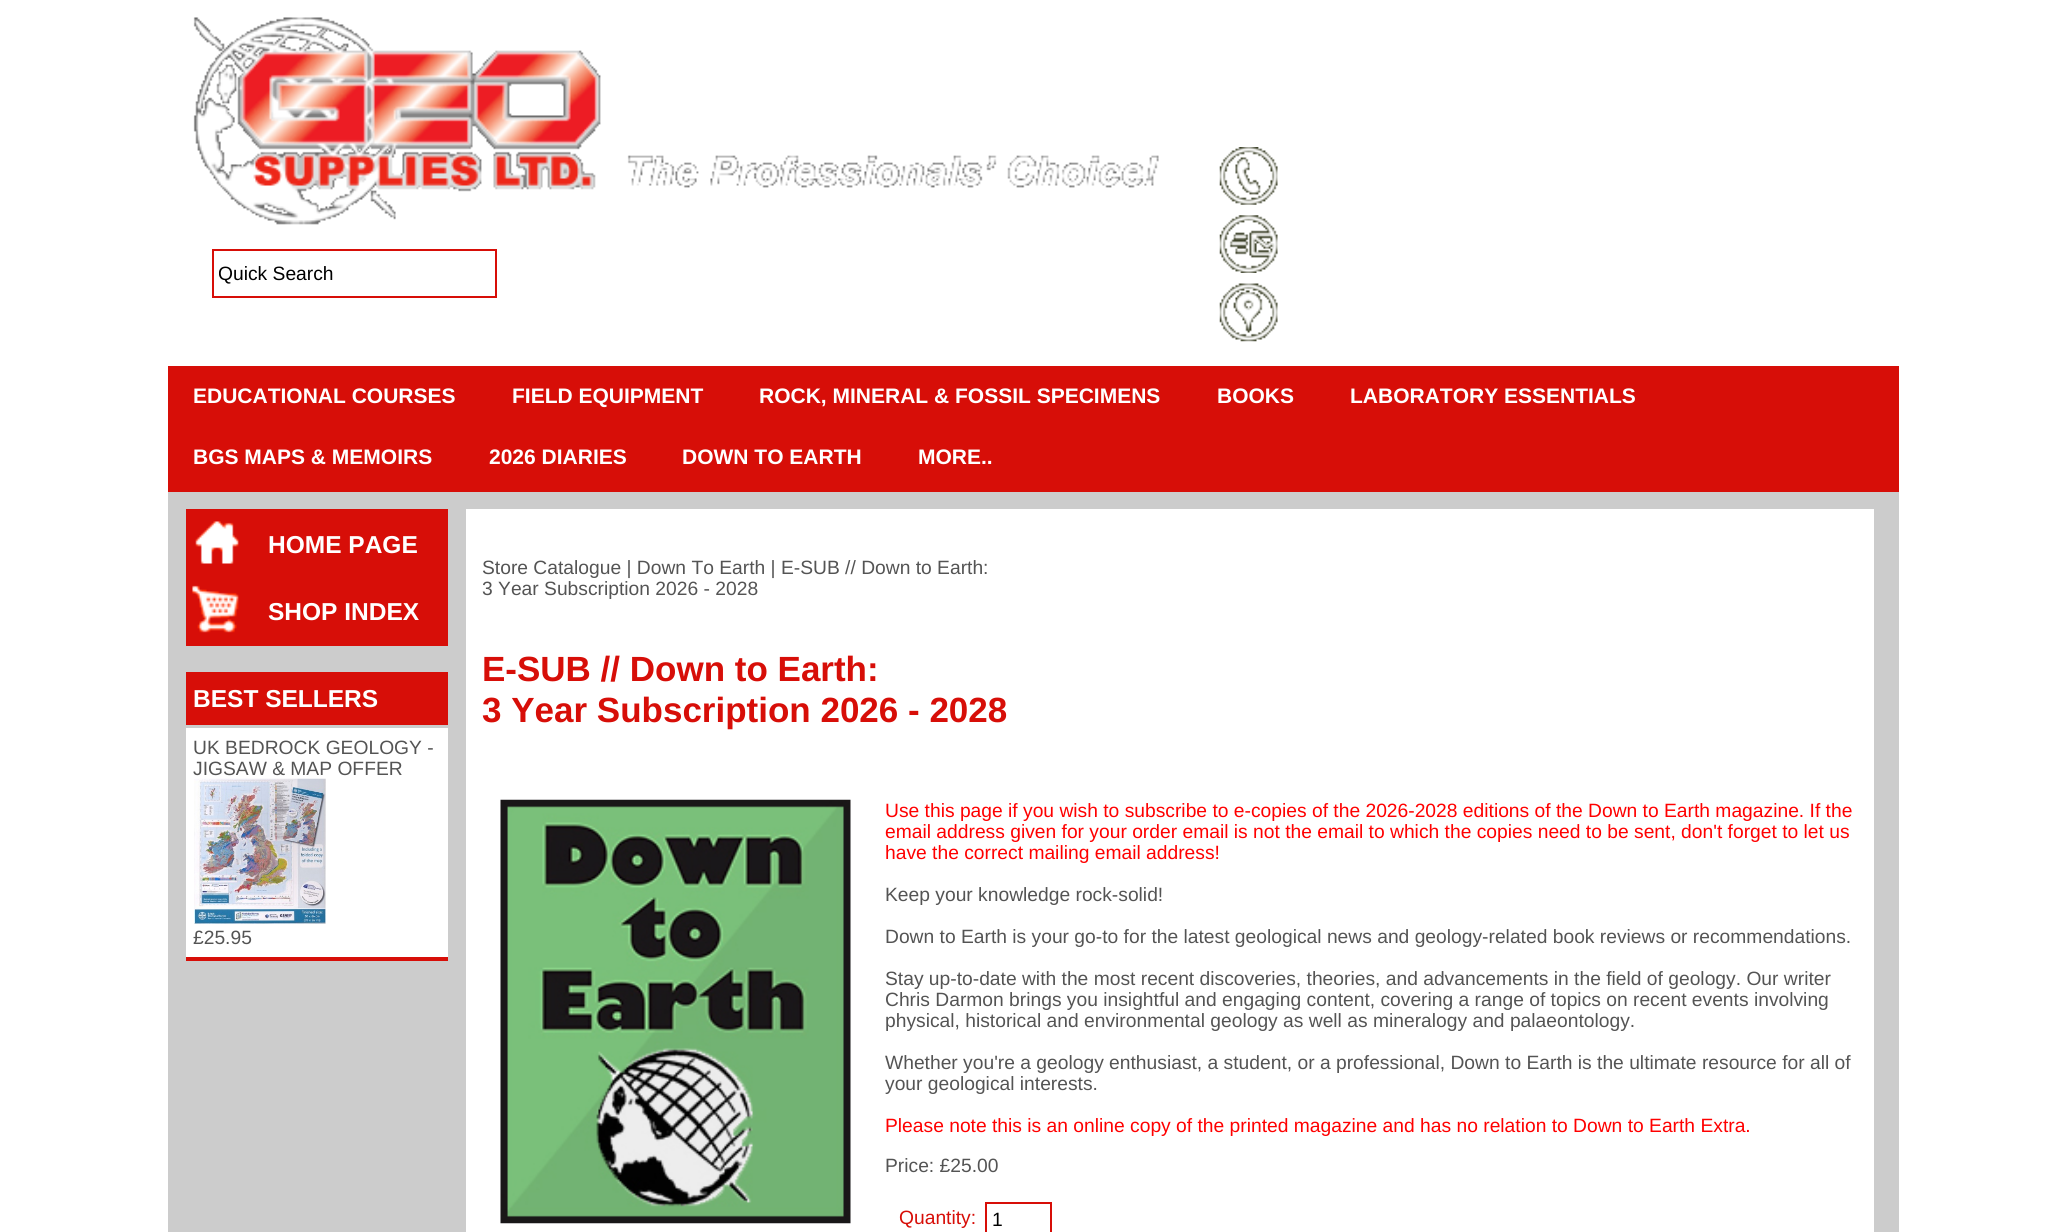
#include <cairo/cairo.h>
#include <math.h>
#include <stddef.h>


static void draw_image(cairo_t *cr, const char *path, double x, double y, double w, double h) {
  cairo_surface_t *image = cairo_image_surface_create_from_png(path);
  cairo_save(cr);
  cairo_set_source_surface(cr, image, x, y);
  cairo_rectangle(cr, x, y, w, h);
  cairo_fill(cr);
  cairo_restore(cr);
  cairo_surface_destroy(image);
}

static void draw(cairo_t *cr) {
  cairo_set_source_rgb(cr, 1, 1, 1);
  cairo_paint(cr);
  draw_image(cr, "images/1.png", 193, 17, 966, 208);
  cairo_rectangle(cr, 213, 250, 283, 47);
  cairo_set_source_rgb(cr, 215 / 255.0, 14 / 255.0, 8 / 255.0);
  cairo_stroke(cr);
  draw_image(cr, "images/2.png", 1219, 147, 59, 58);
  draw_image(cr, "images/3.png", 1219, 215, 59, 58);
  draw_image(cr, "images/4.png", 1219, 283, 59, 59);
  cairo_rectangle(cr, 168, 366, 1731, 126);
  cairo_fill(cr);
  cairo_set_source_rgb(cr, 204 / 255.0, 204 / 255.0, 204 / 255.0);
  cairo_rectangle(cr, 168, 492, 1731, 740);
  cairo_fill(cr);
  cairo_set_source_rgb(cr, 215 / 255.0, 14 / 255.0, 8 / 255.0);
  cairo_rectangle(cr, 186, 509, 262, 137);
  cairo_fill(cr);
  draw_image(cr, "images/5.png", 195, 521, 44, 43);
  draw_image(cr, "images/6.png", 192, 585, 47, 48);
  cairo_rectangle(cr, 186, 672, 262, 53);
  cairo_fill(cr);
  cairo_set_source_rgb(cr, 1, 1, 1);
  cairo_rectangle(cr, 186, 728, 262, 229);
  cairo_fill(cr);
  cairo_set_source_rgb(cr, 215 / 255.0, 14 / 255.0, 8 / 255.0);
  cairo_rectangle(cr, 186, 957, 262, 4);
  cairo_fill(cr);
  draw_image(cr, "images/7.png", 194, 778, 132, 146);
  cairo_set_source_rgb(cr, 1, 1, 1);
  cairo_rectangle(cr, 466, 509, 1408, 723);
  cairo_fill(cr);
  draw_image(cr, "images/8.png", 500, 799, 351, 425);
  cairo_rectangle(cr, 986, 1203, 65, 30);
  cairo_set_source_rgb(cr, 215 / 255.0, 14 / 255.0, 8 / 255.0);
  cairo_stroke(cr);
  cairo_save(cr);
  cairo_rectangle(cr, 219, 263, 271, 21);
  cairo_clip(cr);
  cairo_select_font_face(cr, "Liberation Sans", CAIRO_FONT_SLANT_NORMAL, CAIRO_FONT_WEIGHT_NORMAL);
  cairo_set_font_size(cr, 19.25);
  cairo_set_source_rgb(cr, 0, 0, 0);
  cairo_move_to(cr, 218, 280);
  cairo_show_text(cr, "Quick Search");
  cairo_restore(cr);
  cairo_select_font_face(cr, "Liberation Sans", CAIRO_FONT_SLANT_NORMAL, CAIRO_FONT_WEIGHT_BOLD);
  cairo_set_font_size(cr, 21);
  cairo_set_source_rgb(cr, 1, 1, 1);
  cairo_move_to(cr, 193, 403);
  cairo_show_text(cr, "EDUCATIONAL COURSES");
  cairo_move_to(cr, 512, 403);
  cairo_show_text(cr, "FIELD EQUIPMENT");
  cairo_move_to(cr, 759, 403);
  cairo_show_text(cr, "ROCK, MINERAL & FOSSIL SPECIMENS");
  cairo_move_to(cr, 1217, 403);
  cairo_show_text(cr, "BOOKS");
  cairo_move_to(cr, 1350, 403);
  cairo_show_text(cr, "LABORATORY ESSENTIALS");
  cairo_move_to(cr, 193, 464);
  cairo_show_text(cr, "BGS MAPS & MEMOIRS");
  cairo_move_to(cr, 489, 464);
  cairo_show_text(cr, "2026 DIARIES");
  cairo_move_to(cr, 682, 464);
  cairo_show_text(cr, "DOWN TO EARTH");
  cairo_move_to(cr, 918, 464);
  cairo_show_text(cr, "MORE..");
  cairo_set_font_size(cr, 24.5);
  cairo_move_to(cr, 268, 553);
  cairo_show_text(cr, "HOME PAGE");
  cairo_move_to(cr, 268, 620);
  cairo_show_text(cr, "SHOP INDEX");
  cairo_move_to(cr, 193, 707);
  cairo_show_text(cr, "BEST SELLERS");
  cairo_select_font_face(cr, "Liberation Sans", CAIRO_FONT_SLANT_NORMAL, CAIRO_FONT_WEIGHT_NORMAL);
  cairo_set_font_size(cr, 19.25);
  cairo_set_source_rgb(cr, 84 / 255.0, 84 / 255.0, 84 / 255.0);
  cairo_move_to(cr, 193, 754);
  cairo_show_text(cr, "UK BEDROCK GEOLOGY -");
  cairo_move_to(cr, 193, 775);
  cairo_show_text(cr, "JIGSAW & MAP OFFER");
  cairo_move_to(cr, 193, 944);
  cairo_show_text(cr, "£25.95");
  cairo_move_to(cr, 482, 574);
  cairo_show_text(cr, "Store Catalogue | Down To Earth | E-SUB // Down to Earth:");
  cairo_move_to(cr, 482, 595);
  cairo_show_text(cr, "3 Year Subscription 2026 - 2028");
  cairo_select_font_face(cr, "Liberation Sans", CAIRO_FONT_SLANT_NORMAL, CAIRO_FONT_WEIGHT_BOLD);
  cairo_set_font_size(cr, 35);
  cairo_set_source_rgb(cr, 215 / 255.0, 14 / 255.0, 8 / 255.0);
  cairo_move_to(cr, 482, 681);
  cairo_show_text(cr, "E-SUB // Down to Earth:");
  cairo_move_to(cr, 482, 722);
  cairo_show_text(cr, "3 Year Subscription 2026 - 2028");
  cairo_select_font_face(cr, "Liberation Sans", CAIRO_FONT_SLANT_NORMAL, CAIRO_FONT_WEIGHT_NORMAL);
  cairo_set_font_size(cr, 19.25);
  cairo_set_source_rgb(cr, 1, 0, 0);
  cairo_move_to(cr, 885, 817);
  cairo_show_text(cr, "Use this page if you wish to subscribe to e-copies of the 2026-2028 editions of the Down to Earth magazine. If the");
  cairo_move_to(cr, 885, 838);
  cairo_show_text(cr, "email address given for your order email is not the email to which the copies need to be sent, don't forget to let us");
  cairo_move_to(cr, 885, 859);
  cairo_show_text(cr, "have the correct mailing email address!");
  cairo_set_source_rgb(cr, 84 / 255.0, 84 / 255.0, 84 / 255.0);
  cairo_move_to(cr, 885, 901);
  cairo_show_text(cr, "Keep your knowledge rock-solid!");
  cairo_move_to(cr, 885, 943);
  cairo_show_text(cr, "Down to Earth is your go-to for the latest geological news and geology-related book reviews or recommendations.");
  cairo_move_to(cr, 885, 985);
  cairo_show_text(cr, "Stay up-to-date with the most recent discoveries, theories, and advancements in the field of geology. Our writer");
  cairo_move_to(cr, 885, 1006);
  cairo_show_text(cr, "Chris Darmon brings you insightful and engaging content, covering a range of topics on recent events involving");
  cairo_move_to(cr, 885, 1027);
  cairo_show_text(cr, "physical, historical and environmental geology as well as mineralogy and palaeontology.");
  cairo_move_to(cr, 885, 1069);
  cairo_show_text(cr, "Whether you're a geology enthusiast, a student, or a professional, Down to Earth is the ultimate resource for all of");
  cairo_move_to(cr, 885, 1090);
  cairo_show_text(cr, "your geological interests.");
  cairo_set_source_rgb(cr, 1, 0, 0);
  cairo_move_to(cr, 885, 1132);
  cairo_show_text(cr, "Please note this is an online copy of the printed magazine and has no relation to Down to Earth Extra.");
  cairo_set_source_rgb(cr, 84 / 255.0, 84 / 255.0, 84 / 255.0);
  cairo_move_to(cr, 885, 1172);
  cairo_show_text(cr, "Price: £25.00");
  cairo_set_source_rgb(cr, 215 / 255.0, 14 / 255.0, 8 / 255.0);
  cairo_move_to(cr, 899, 1224);
  cairo_show_text(cr, "Quantity:");
  cairo_set_source_rgb(cr, 0, 0, 0);
  cairo_move_to(cr, 992, 1226);
  cairo_show_text(cr, "1");
}

int main(void) {
  cairo_surface_t *surface = cairo_image_surface_create(CAIRO_FORMAT_RGB24, 2065, 1232);
  cairo_t *cr = cairo_create(surface);
  cairo_font_options_t *options = cairo_font_options_create();
  cairo_font_options_set_hint_metrics(options, CAIRO_HINT_METRICS_OFF);
  cairo_font_options_set_hint_style(options, CAIRO_HINT_STYLE_NONE);
  cairo_set_font_options(cr, options);
  cairo_set_miter_limit(cr, 4);
  draw(cr);
  cairo_surface_write_to_png(surface, "out.png");
  cairo_font_options_destroy(options);
  cairo_destroy(cr);
  cairo_surface_destroy(surface);
  return 0;
}
